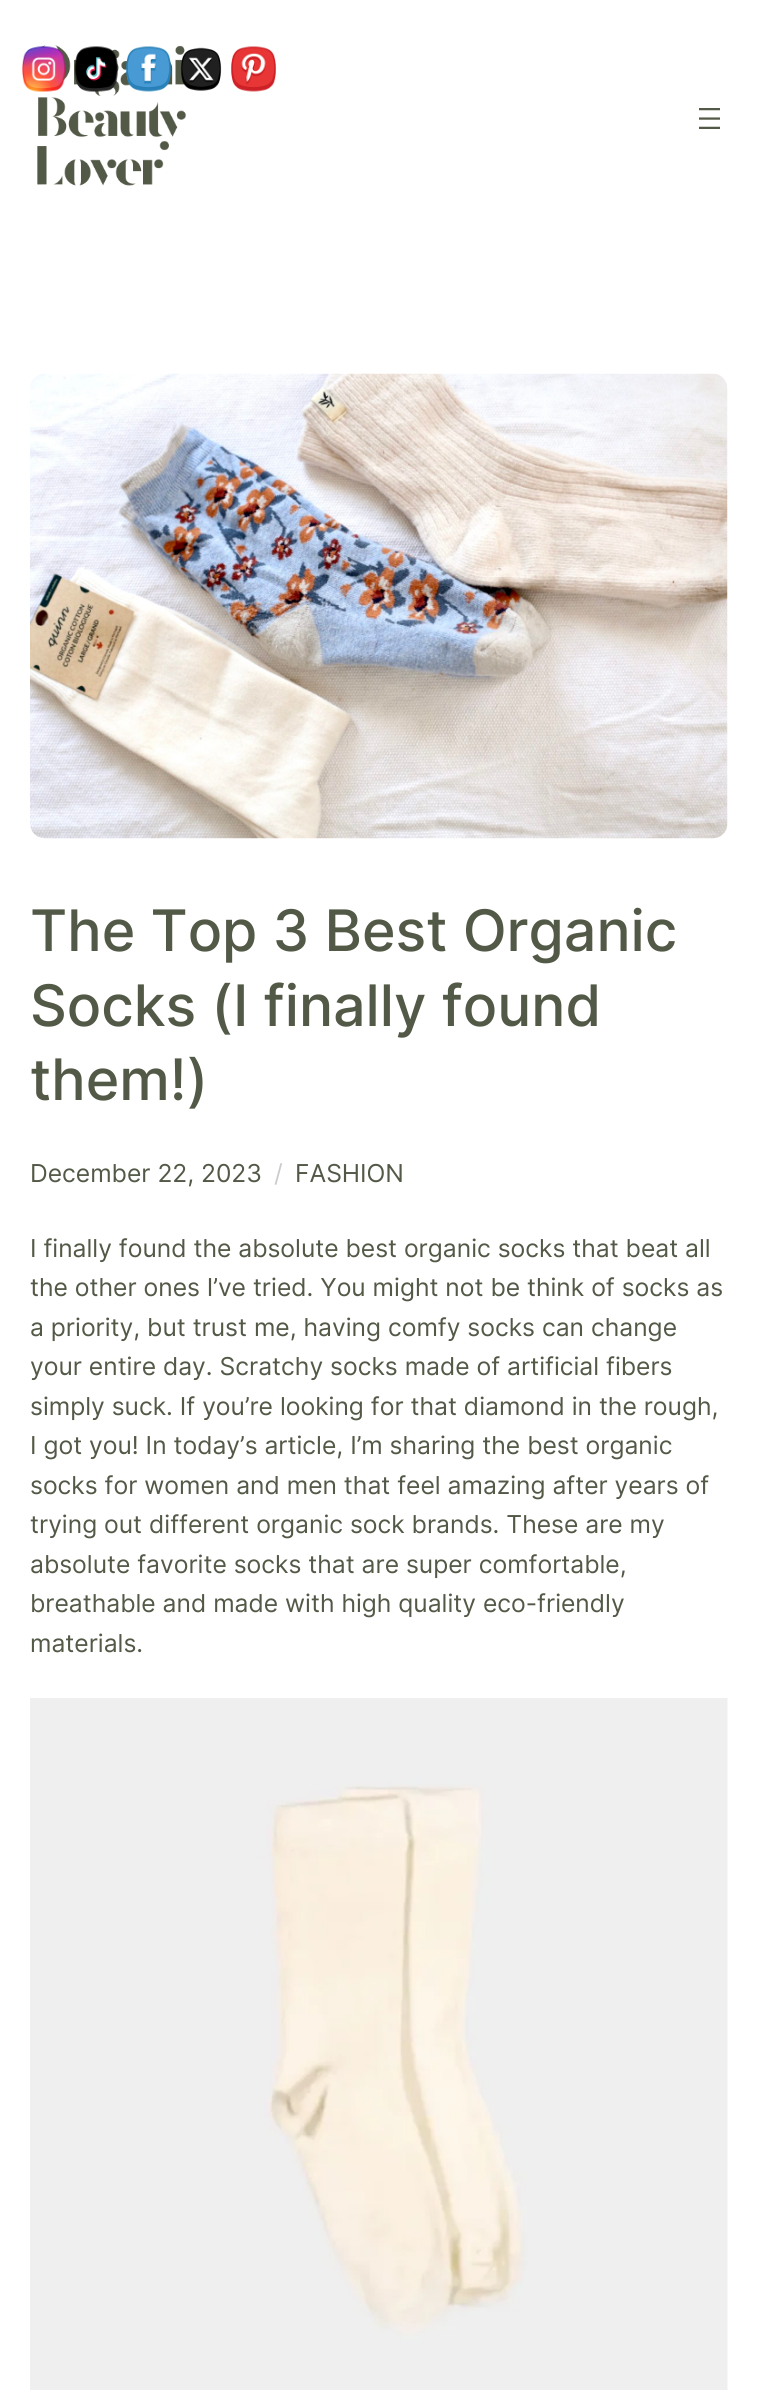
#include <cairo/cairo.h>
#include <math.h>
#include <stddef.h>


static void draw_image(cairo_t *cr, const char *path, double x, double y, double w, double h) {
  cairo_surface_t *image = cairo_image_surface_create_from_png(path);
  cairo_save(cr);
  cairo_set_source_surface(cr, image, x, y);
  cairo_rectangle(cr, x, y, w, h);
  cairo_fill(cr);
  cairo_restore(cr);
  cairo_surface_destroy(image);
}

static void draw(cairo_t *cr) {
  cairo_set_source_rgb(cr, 1, 1, 1);
  cairo_paint(cr);
  draw_image(cr, "images/6.png", 37, 45, 150, 141);
  draw_image(cr, "images/1.png", 22, 46, 44, 46);
  draw_image(cr, "images/2.png", 74, 46, 44, 46);
  draw_image(cr, "images/3.png", 126, 46, 45, 46);
  draw_image(cr, "images/4.png", 180, 47, 42, 44);
  draw_image(cr, "images/5.png", 231, 46, 45, 46);
  draw_image(cr, "images/7.png", 699, 108, 21, 21);
  draw_image(cr, "images/8.png", 30, 373, 698, 466);
  draw_image(cr, "images/9.png", 30, 1698, 698, 692);
  cairo_select_font_face(cr, "Inter Medium", CAIRO_FONT_SLANT_NORMAL, CAIRO_FONT_WEIGHT_NORMAL);
  cairo_set_font_size(cr, 57.2);
  cairo_set_source_rgb(cr, 83 / 255.0, 89 / 255.0, 71 / 255.0);
  cairo_move_to(cr, 30, 951);
  cairo_show_text(cr, "The Top 3 Best Organic");
  cairo_move_to(cr, 30, 1026);
  cairo_show_text(cr, "Socks (I finally found");
  cairo_move_to(cr, 30, 1100);
  cairo_show_text(cr, "them!)");
  cairo_select_font_face(cr, "Inter", CAIRO_FONT_SLANT_NORMAL, CAIRO_FONT_WEIGHT_NORMAL);
  cairo_set_font_size(cr, 24.65);
  cairo_move_to(cr, 30, 1182);
  cairo_show_text(cr, "December 22, 2023");
  cairo_set_source_rgb(cr, 204 / 255.0, 204 / 255.0, 204 / 255.0);
  cairo_move_to(cr, 274, 1182);
  cairo_show_text(cr, "/");
  cairo_set_source_rgb(cr, 83 / 255.0, 89 / 255.0, 71 / 255.0);
  cairo_move_to(cr, 295, 1182);
  cairo_show_text(cr, "FASHION");
  cairo_move_to(cr, 30, 1257);
  cairo_show_text(cr, "I finally found the absolute best organic socks that beat all");
  cairo_move_to(cr, 30, 1296);
  cairo_show_text(cr, "the other ones I’ve tried. You might not be think of socks as");
  cairo_move_to(cr, 30, 1336);
  cairo_show_text(cr, "a priority, but trust me, having comfy socks can change");
  cairo_move_to(cr, 30, 1375);
  cairo_show_text(cr, "your entire day. Scratchy socks made of artificial fibers");
  cairo_move_to(cr, 30, 1415);
  cairo_show_text(cr, "simply suck. If you’re looking for that diamond in the rough,");
  cairo_move_to(cr, 30, 1454);
  cairo_show_text(cr, "I got you! In today’s article, I’m sharing the best organic");
  cairo_move_to(cr, 30, 1494);
  cairo_show_text(cr, "socks for women and men that feel amazing after years of");
  cairo_move_to(cr, 30, 1533);
  cairo_show_text(cr, "trying out different organic sock brands. These are my");
  cairo_move_to(cr, 30, 1573);
  cairo_show_text(cr, "absolute favorite socks that are super comfortable,");
  cairo_move_to(cr, 30, 1612);
  cairo_show_text(cr, "breathable and made with high quality eco-friendly");
  cairo_move_to(cr, 30, 1652);
  cairo_show_text(cr, "materials.");
}

int main(void) {
  cairo_surface_t *surface = cairo_image_surface_create(CAIRO_FORMAT_RGB24, 757, 2390);
  cairo_t *cr = cairo_create(surface);
  cairo_font_options_t *options = cairo_font_options_create();
  cairo_font_options_set_hint_metrics(options, CAIRO_HINT_METRICS_OFF);
  cairo_font_options_set_hint_style(options, CAIRO_HINT_STYLE_NONE);
  cairo_set_font_options(cr, options);
  cairo_set_miter_limit(cr, 4);
  draw(cr);
  cairo_surface_write_to_png(surface, "out.png");
  cairo_font_options_destroy(options);
  cairo_destroy(cr);
  cairo_surface_destroy(surface);
  return 0;
}
